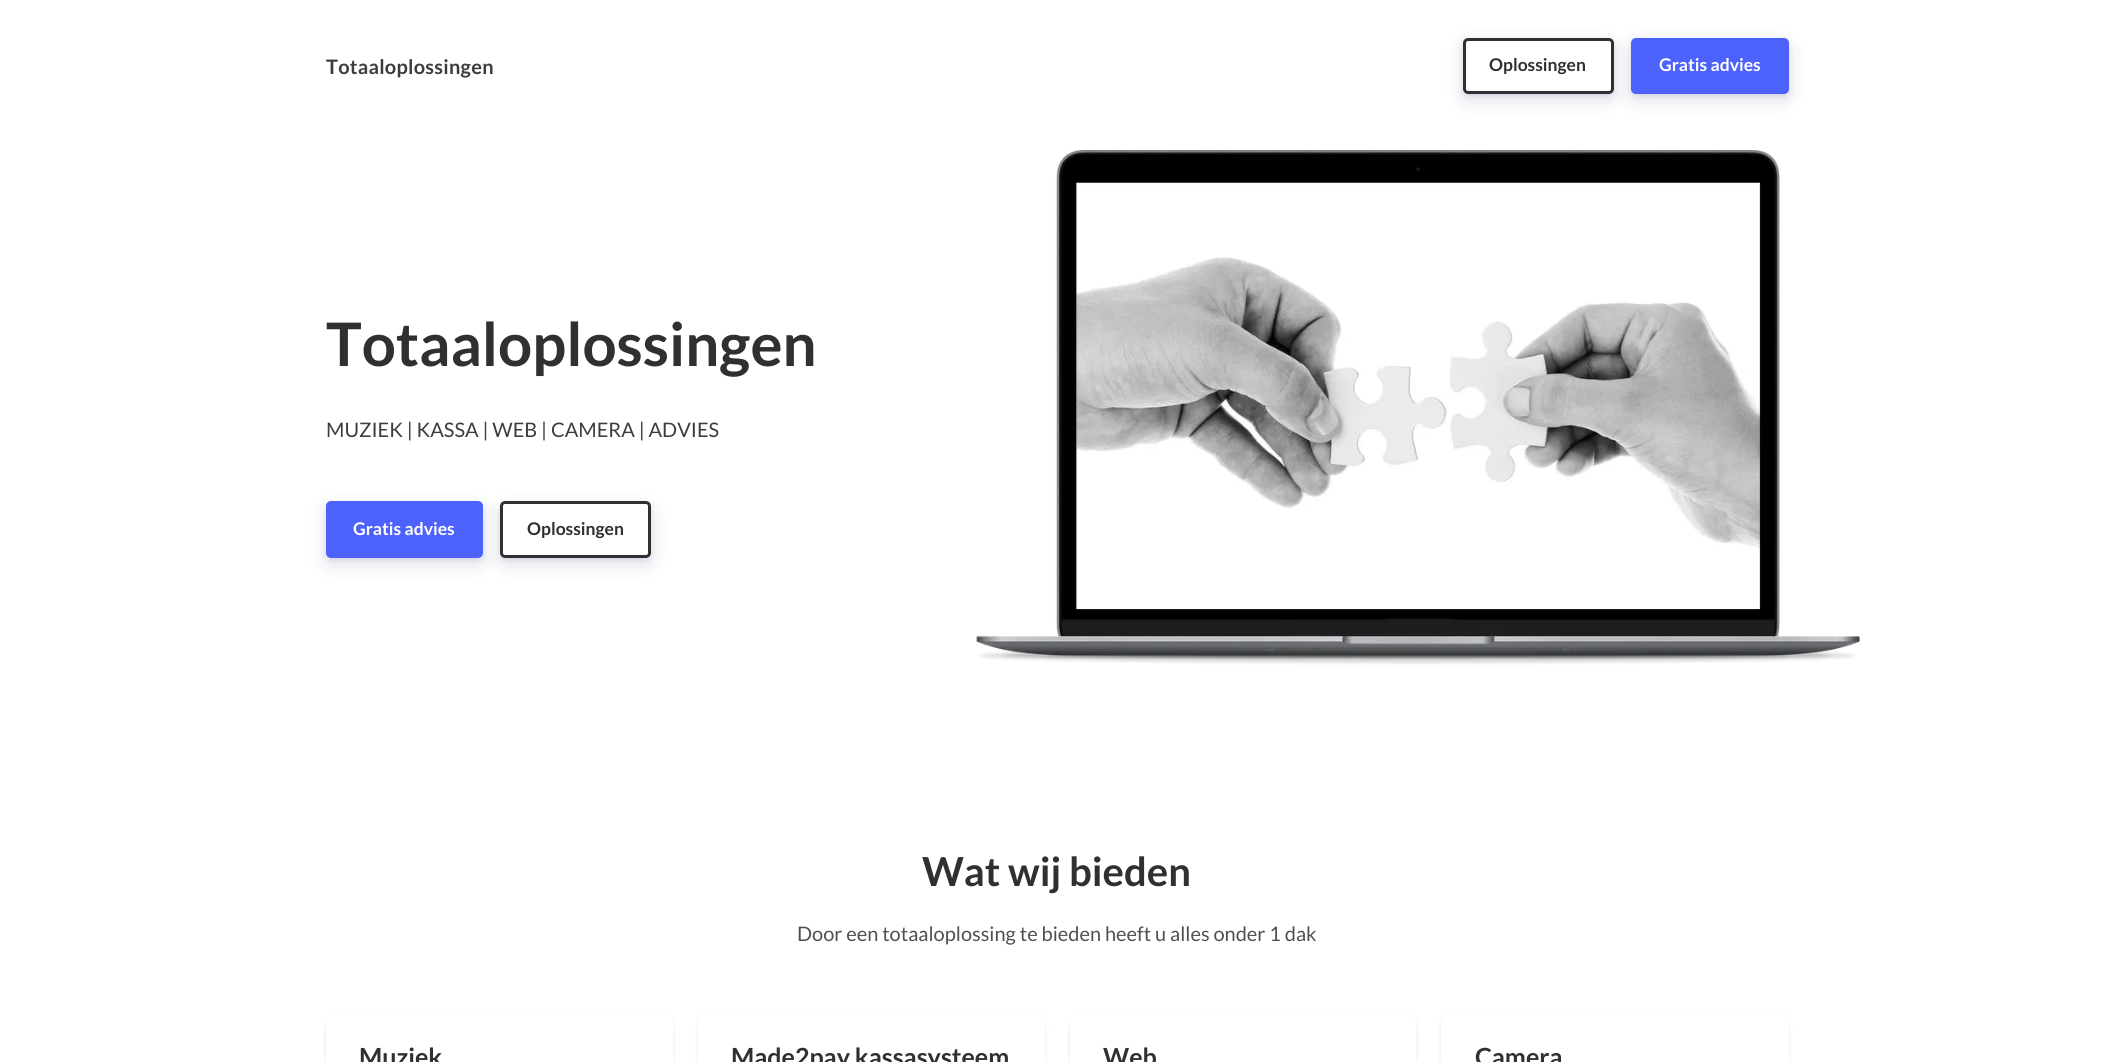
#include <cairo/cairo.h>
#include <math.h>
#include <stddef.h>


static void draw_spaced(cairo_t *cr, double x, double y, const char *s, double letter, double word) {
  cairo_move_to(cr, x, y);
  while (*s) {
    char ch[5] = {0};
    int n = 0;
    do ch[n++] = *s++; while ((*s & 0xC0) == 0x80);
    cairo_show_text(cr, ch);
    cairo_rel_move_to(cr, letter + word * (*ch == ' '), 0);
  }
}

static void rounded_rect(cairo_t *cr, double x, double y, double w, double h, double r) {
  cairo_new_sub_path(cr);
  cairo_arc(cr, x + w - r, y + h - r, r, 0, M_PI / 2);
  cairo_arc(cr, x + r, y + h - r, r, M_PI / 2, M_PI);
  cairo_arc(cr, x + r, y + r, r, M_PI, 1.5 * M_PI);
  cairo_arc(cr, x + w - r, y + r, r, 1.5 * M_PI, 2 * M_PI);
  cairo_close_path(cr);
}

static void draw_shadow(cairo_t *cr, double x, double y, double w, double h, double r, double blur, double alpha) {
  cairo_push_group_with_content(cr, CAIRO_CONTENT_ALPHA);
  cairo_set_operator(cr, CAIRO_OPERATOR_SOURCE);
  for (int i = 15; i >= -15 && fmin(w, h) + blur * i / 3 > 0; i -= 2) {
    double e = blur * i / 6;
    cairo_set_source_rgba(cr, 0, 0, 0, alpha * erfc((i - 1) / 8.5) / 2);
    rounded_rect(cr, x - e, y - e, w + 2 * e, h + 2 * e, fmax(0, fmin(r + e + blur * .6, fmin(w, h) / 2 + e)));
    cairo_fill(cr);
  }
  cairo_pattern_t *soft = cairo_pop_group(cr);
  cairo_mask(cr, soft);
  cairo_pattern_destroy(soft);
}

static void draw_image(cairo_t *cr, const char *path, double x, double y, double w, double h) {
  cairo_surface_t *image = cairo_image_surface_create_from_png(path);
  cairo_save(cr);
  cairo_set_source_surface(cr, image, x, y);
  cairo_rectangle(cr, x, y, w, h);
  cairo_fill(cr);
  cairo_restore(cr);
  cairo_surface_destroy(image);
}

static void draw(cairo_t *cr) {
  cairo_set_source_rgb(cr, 1, 1, 1);
  cairo_paint(cr);
  cairo_set_source_rgb(cr, 37 / 255.0, 44 / 255.0, 97 / 255.0);
  draw_shadow(cr, 1631, 44, 158, 56, 5, 9.5, 0.15);
  cairo_set_source_rgb(cr, 136 / 255.0, 144 / 255.0, 195 / 255.0);
  draw_shadow(cr, 1631, 40, 158, 56, 5, 2.5, 0.2);
  cairo_set_source_rgb(cr, 77 / 255.0, 97 / 255.0, 252 / 255.0);
  rounded_rect(cr, 1631, 38, 158, 56, 5);
  cairo_fill(cr);
  cairo_save(cr);
  cairo_set_fill_rule(cr, CAIRO_FILL_RULE_EVEN_ODD);
  cairo_new_path(cr);
  cairo_move_to(cr, 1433, 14);
  cairo_line_to(cr, 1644, 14);
  cairo_line_to(cr, 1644, 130);
  cairo_line_to(cr, 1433, 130);
  cairo_close_path(cr);
  cairo_move_to(cr, 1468, 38);
  cairo_line_to(cr, 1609, 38);
  cairo_curve_to(cr, 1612, 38, 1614, 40, 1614, 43);
  cairo_line_to(cr, 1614, 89);
  cairo_curve_to(cr, 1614, 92, 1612, 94, 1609, 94);
  cairo_line_to(cr, 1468, 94);
  cairo_curve_to(cr, 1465, 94, 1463, 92, 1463, 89);
  cairo_line_to(cr, 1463, 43);
  cairo_curve_to(cr, 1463, 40, 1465, 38, 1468, 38);
  cairo_close_path(cr);
  cairo_clip(cr);
  cairo_set_source_rgb(cr, 37 / 255.0, 44 / 255.0, 97 / 255.0);
  draw_shadow(cr, 1463, 44, 151, 56, 5, 9.5, 0.15);
  cairo_restore(cr);
  cairo_save(cr);
  cairo_set_fill_rule(cr, CAIRO_FILL_RULE_EVEN_ODD);
  cairo_new_path(cr);
  cairo_move_to(cr, 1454, 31);
  cairo_line_to(cr, 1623, 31);
  cairo_line_to(cr, 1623, 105);
  cairo_line_to(cr, 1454, 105);
  cairo_close_path(cr);
  cairo_move_to(cr, 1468, 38);
  cairo_line_to(cr, 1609, 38);
  cairo_curve_to(cr, 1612, 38, 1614, 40, 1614, 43);
  cairo_line_to(cr, 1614, 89);
  cairo_curve_to(cr, 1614, 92, 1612, 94, 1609, 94);
  cairo_line_to(cr, 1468, 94);
  cairo_curve_to(cr, 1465, 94, 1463, 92, 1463, 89);
  cairo_line_to(cr, 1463, 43);
  cairo_curve_to(cr, 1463, 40, 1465, 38, 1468, 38);
  cairo_close_path(cr);
  cairo_clip(cr);
  cairo_set_source_rgb(cr, 136 / 255.0, 144 / 255.0, 195 / 255.0);
  draw_shadow(cr, 1463, 40, 151, 56, 5, 2.5, 0.2);
  cairo_restore(cr);
  rounded_rect(cr, 1464.5, 39.5, 148, 53, 3.5);
  cairo_set_source_rgb(cr, 48 / 255.0, 48 / 255.0, 48 / 255.0);
  cairo_set_line_width(cr, 3);
  cairo_stroke(cr);
  cairo_set_source_rgb(cr, 37 / 255.0, 44 / 255.0, 97 / 255.0);
  draw_shadow(cr, 326, 508, 157, 56, 5, 9.5, 0.15);
  cairo_set_source_rgb(cr, 136 / 255.0, 144 / 255.0, 195 / 255.0);
  draw_shadow(cr, 326, 504, 157, 56, 5, 2.5, 0.2);
  cairo_set_source_rgb(cr, 77 / 255.0, 97 / 255.0, 252 / 255.0);
  rounded_rect(cr, 326, 501, 157, 57, 5);
  cairo_fill(cr);
  cairo_save(cr);
  cairo_set_fill_rule(cr, CAIRO_FILL_RULE_EVEN_ODD);
  cairo_new_path(cr);
  cairo_move_to(cr, 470, 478);
  cairo_line_to(cr, 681, 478);
  cairo_line_to(cr, 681, 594);
  cairo_line_to(cr, 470, 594);
  cairo_close_path(cr);
  cairo_move_to(cr, 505, 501);
  cairo_line_to(cr, 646, 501);
  cairo_curve_to(cr, 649, 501, 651, 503, 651, 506);
  cairo_line_to(cr, 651, 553);
  cairo_curve_to(cr, 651, 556, 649, 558, 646, 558);
  cairo_line_to(cr, 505, 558);
  cairo_curve_to(cr, 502, 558, 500, 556, 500, 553);
  cairo_line_to(cr, 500, 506);
  cairo_curve_to(cr, 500, 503, 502, 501, 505, 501);
  cairo_close_path(cr);
  cairo_clip(cr);
  cairo_set_source_rgb(cr, 37 / 255.0, 44 / 255.0, 97 / 255.0);
  draw_shadow(cr, 500, 508, 151, 56, 5, 9.5, 0.15);
  cairo_restore(cr);
  cairo_save(cr);
  cairo_set_fill_rule(cr, CAIRO_FILL_RULE_EVEN_ODD);
  cairo_new_path(cr);
  cairo_move_to(cr, 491, 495);
  cairo_line_to(cr, 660, 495);
  cairo_line_to(cr, 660, 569);
  cairo_line_to(cr, 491, 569);
  cairo_close_path(cr);
  cairo_move_to(cr, 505, 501);
  cairo_line_to(cr, 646, 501);
  cairo_curve_to(cr, 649, 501, 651, 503, 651, 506);
  cairo_line_to(cr, 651, 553);
  cairo_curve_to(cr, 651, 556, 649, 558, 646, 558);
  cairo_line_to(cr, 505, 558);
  cairo_curve_to(cr, 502, 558, 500, 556, 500, 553);
  cairo_line_to(cr, 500, 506);
  cairo_curve_to(cr, 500, 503, 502, 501, 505, 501);
  cairo_close_path(cr);
  cairo_clip(cr);
  cairo_set_source_rgb(cr, 136 / 255.0, 144 / 255.0, 195 / 255.0);
  draw_shadow(cr, 500, 504, 151, 56, 5, 2.5, 0.2);
  cairo_restore(cr);
  rounded_rect(cr, 501.5, 502.5, 148, 54, 3.5);
  cairo_set_source_rgb(cr, 48 / 255.0, 48 / 255.0, 48 / 255.0);
  cairo_stroke(cr);
  draw_image(cr, "images/2.png", 1076, 257, 685, 291);
  draw_image(cr, "images/1.png", 976, 150, 884, 515);
  cairo_set_source_rgb(cr, 136 / 255.0, 144 / 255.0, 195 / 255.0);
  draw_shadow(cr, 326, 1014, 347, 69, 13, 2.5, 0.2);
  cairo_set_source_rgb(cr, 1, 1, 1);
  rounded_rect(cr, 326, 1011, 347, 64, 13);
  cairo_fill(cr);
  cairo_save(cr);
  cairo_set_fill_rule(cr, CAIRO_FILL_RULE_EVEN_ODD);
  cairo_new_path(cr);
  cairo_move_to(cr, 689, 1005);
  cairo_line_to(cr, 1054, 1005);
  cairo_line_to(cr, 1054, 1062);
  cairo_line_to(cr, 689, 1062);
  cairo_close_path(cr);
  cairo_move_to(cr, 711, 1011);
  cairo_line_to(cr, 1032, 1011);
  cairo_curve_to(cr, 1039, 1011, 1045, 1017, 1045, 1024);
  cairo_line_to(cr, 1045, 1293);
  cairo_curve_to(cr, 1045, 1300, 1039, 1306, 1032, 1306);
  cairo_line_to(cr, 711, 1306);
  cairo_curve_to(cr, 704, 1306, 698, 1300, 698, 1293);
  cairo_line_to(cr, 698, 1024);
  cairo_curve_to(cr, 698, 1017, 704, 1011, 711, 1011);
  cairo_close_path(cr);
  cairo_clip(cr);
  cairo_set_source_rgb(cr, 136 / 255.0, 144 / 255.0, 195 / 255.0);
  draw_shadow(cr, 698, 1014, 347, 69, 13, 2.5, 0.2);
  cairo_restore(cr);
  cairo_save(cr);
  cairo_set_fill_rule(cr, CAIRO_FILL_RULE_EVEN_ODD);
  cairo_new_path(cr);
  cairo_move_to(cr, 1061, 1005);
  cairo_line_to(cr, 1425, 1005);
  cairo_line_to(cr, 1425, 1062);
  cairo_line_to(cr, 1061, 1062);
  cairo_close_path(cr);
  cairo_move_to(cr, 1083, 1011);
  cairo_line_to(cr, 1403, 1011);
  cairo_curve_to(cr, 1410, 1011, 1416, 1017, 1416, 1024);
  cairo_line_to(cr, 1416, 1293);
  cairo_curve_to(cr, 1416, 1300, 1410, 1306, 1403, 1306);
  cairo_line_to(cr, 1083, 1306);
  cairo_curve_to(cr, 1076, 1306, 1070, 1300, 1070, 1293);
  cairo_line_to(cr, 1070, 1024);
  cairo_curve_to(cr, 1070, 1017, 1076, 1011, 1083, 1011);
  cairo_close_path(cr);
  cairo_clip(cr);
  cairo_set_source_rgb(cr, 136 / 255.0, 144 / 255.0, 195 / 255.0);
  draw_shadow(cr, 1070, 1014, 346, 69, 13, 2.5, 0.2);
  cairo_restore(cr);
  cairo_set_source_rgb(cr, 136 / 255.0, 144 / 255.0, 195 / 255.0);
  draw_shadow(cr, 1441, 1014, 348, 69, 13, 2.5, 0.2);
  cairo_set_source_rgb(cr, 1, 1, 1);
  rounded_rect(cr, 1441, 1011, 348, 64, 13);
  cairo_fill(cr);
  cairo_select_font_face(cr, "Lato", CAIRO_FONT_SLANT_NORMAL, CAIRO_FONT_WEIGHT_BOLD);
  cairo_set_font_size(cr, 20);
  cairo_set_source_rgb(cr, 61 / 255.0, 61 / 255.0, 61 / 255.0);
  draw_spaced(cr, 326, 74, "Totaaloplossingen", 0.25, 0);
  cairo_set_font_size(cr, 17.5);
  cairo_set_source_rgb(cr, 48 / 255.0, 48 / 255.0, 48 / 255.0);
  cairo_move_to(cr, 1489, 71);
  cairo_show_text(cr, "Oplossingen");
  cairo_set_source_rgb(cr, 1, 1, 1);
  cairo_move_to(cr, 1659, 71);
  cairo_show_text(cr, "Gratis advies");
  cairo_set_font_size(cr, 60);
  cairo_set_source_rgb(cr, 48 / 255.0, 48 / 255.0, 48 / 255.0);
  cairo_move_to(cr, 326, 366);
  cairo_show_text(cr, "Totaaloplossingen");
  cairo_select_font_face(cr, "Lato", CAIRO_FONT_SLANT_NORMAL, CAIRO_FONT_WEIGHT_NORMAL);
  cairo_set_font_size(cr, 20);
  cairo_set_source_rgb(cr, 61 / 255.0, 61 / 255.0, 61 / 255.0);
  cairo_move_to(cr, 326, 437);
  cairo_show_text(cr, "MUZIEK | KASSA | WEB | CAMERA | ADVIES");
  cairo_select_font_face(cr, "Lato", CAIRO_FONT_SLANT_NORMAL, CAIRO_FONT_WEIGHT_BOLD);
  cairo_set_font_size(cr, 17.5);
  cairo_set_source_rgb(cr, 1, 1, 1);
  cairo_move_to(cr, 353, 535);
  cairo_show_text(cr, "Gratis advies");
  cairo_set_source_rgb(cr, 48 / 255.0, 48 / 255.0, 48 / 255.0);
  cairo_move_to(cr, 527, 535);
  cairo_show_text(cr, "Oplossingen");
  cairo_set_font_size(cr, 40);
  cairo_move_to(cr, 922, 886);
  cairo_show_text(cr, "Wat wij bieden");
  cairo_select_font_face(cr, "Lato", CAIRO_FONT_SLANT_NORMAL, CAIRO_FONT_WEIGHT_NORMAL);
  cairo_set_font_size(cr, 20);
  cairo_set_source_rgb(cr, 80 / 255.0, 80 / 255.0, 80 / 255.0);
  cairo_move_to(cr, 797, 941);
  cairo_show_text(cr, "Door een totaaloplossing te bieden heeft u alles onder 1 dak");
  cairo_select_font_face(cr, "Lato", CAIRO_FONT_SLANT_NORMAL, CAIRO_FONT_WEIGHT_BOLD);
  cairo_set_font_size(cr, 25);
  cairo_set_source_rgb(cr, 48 / 255.0, 48 / 255.0, 48 / 255.0);
  cairo_move_to(cr, 359, 1066);
  cairo_show_text(cr, "Muziek");
  cairo_move_to(cr, 731, 1066);
  cairo_show_text(cr, "Made2pay kassasysteem");
  cairo_move_to(cr, 1103, 1066);
  cairo_show_text(cr, "Web");
  cairo_move_to(cr, 1475, 1066);
  cairo_show_text(cr, "Camera");
}

int main(void) {
  cairo_surface_t *surface = cairo_image_surface_create(CAIRO_FORMAT_RGB24, 2113, 1062);
  cairo_t *cr = cairo_create(surface);
  cairo_font_options_t *options = cairo_font_options_create();
  cairo_font_options_set_hint_metrics(options, CAIRO_HINT_METRICS_OFF);
  cairo_font_options_set_hint_style(options, CAIRO_HINT_STYLE_NONE);
  cairo_set_font_options(cr, options);
  cairo_set_miter_limit(cr, 4);
  draw(cr);
  cairo_surface_write_to_png(surface, "out.png");
  cairo_font_options_destroy(options);
  cairo_destroy(cr);
  cairo_surface_destroy(surface);
  return 0;
}
